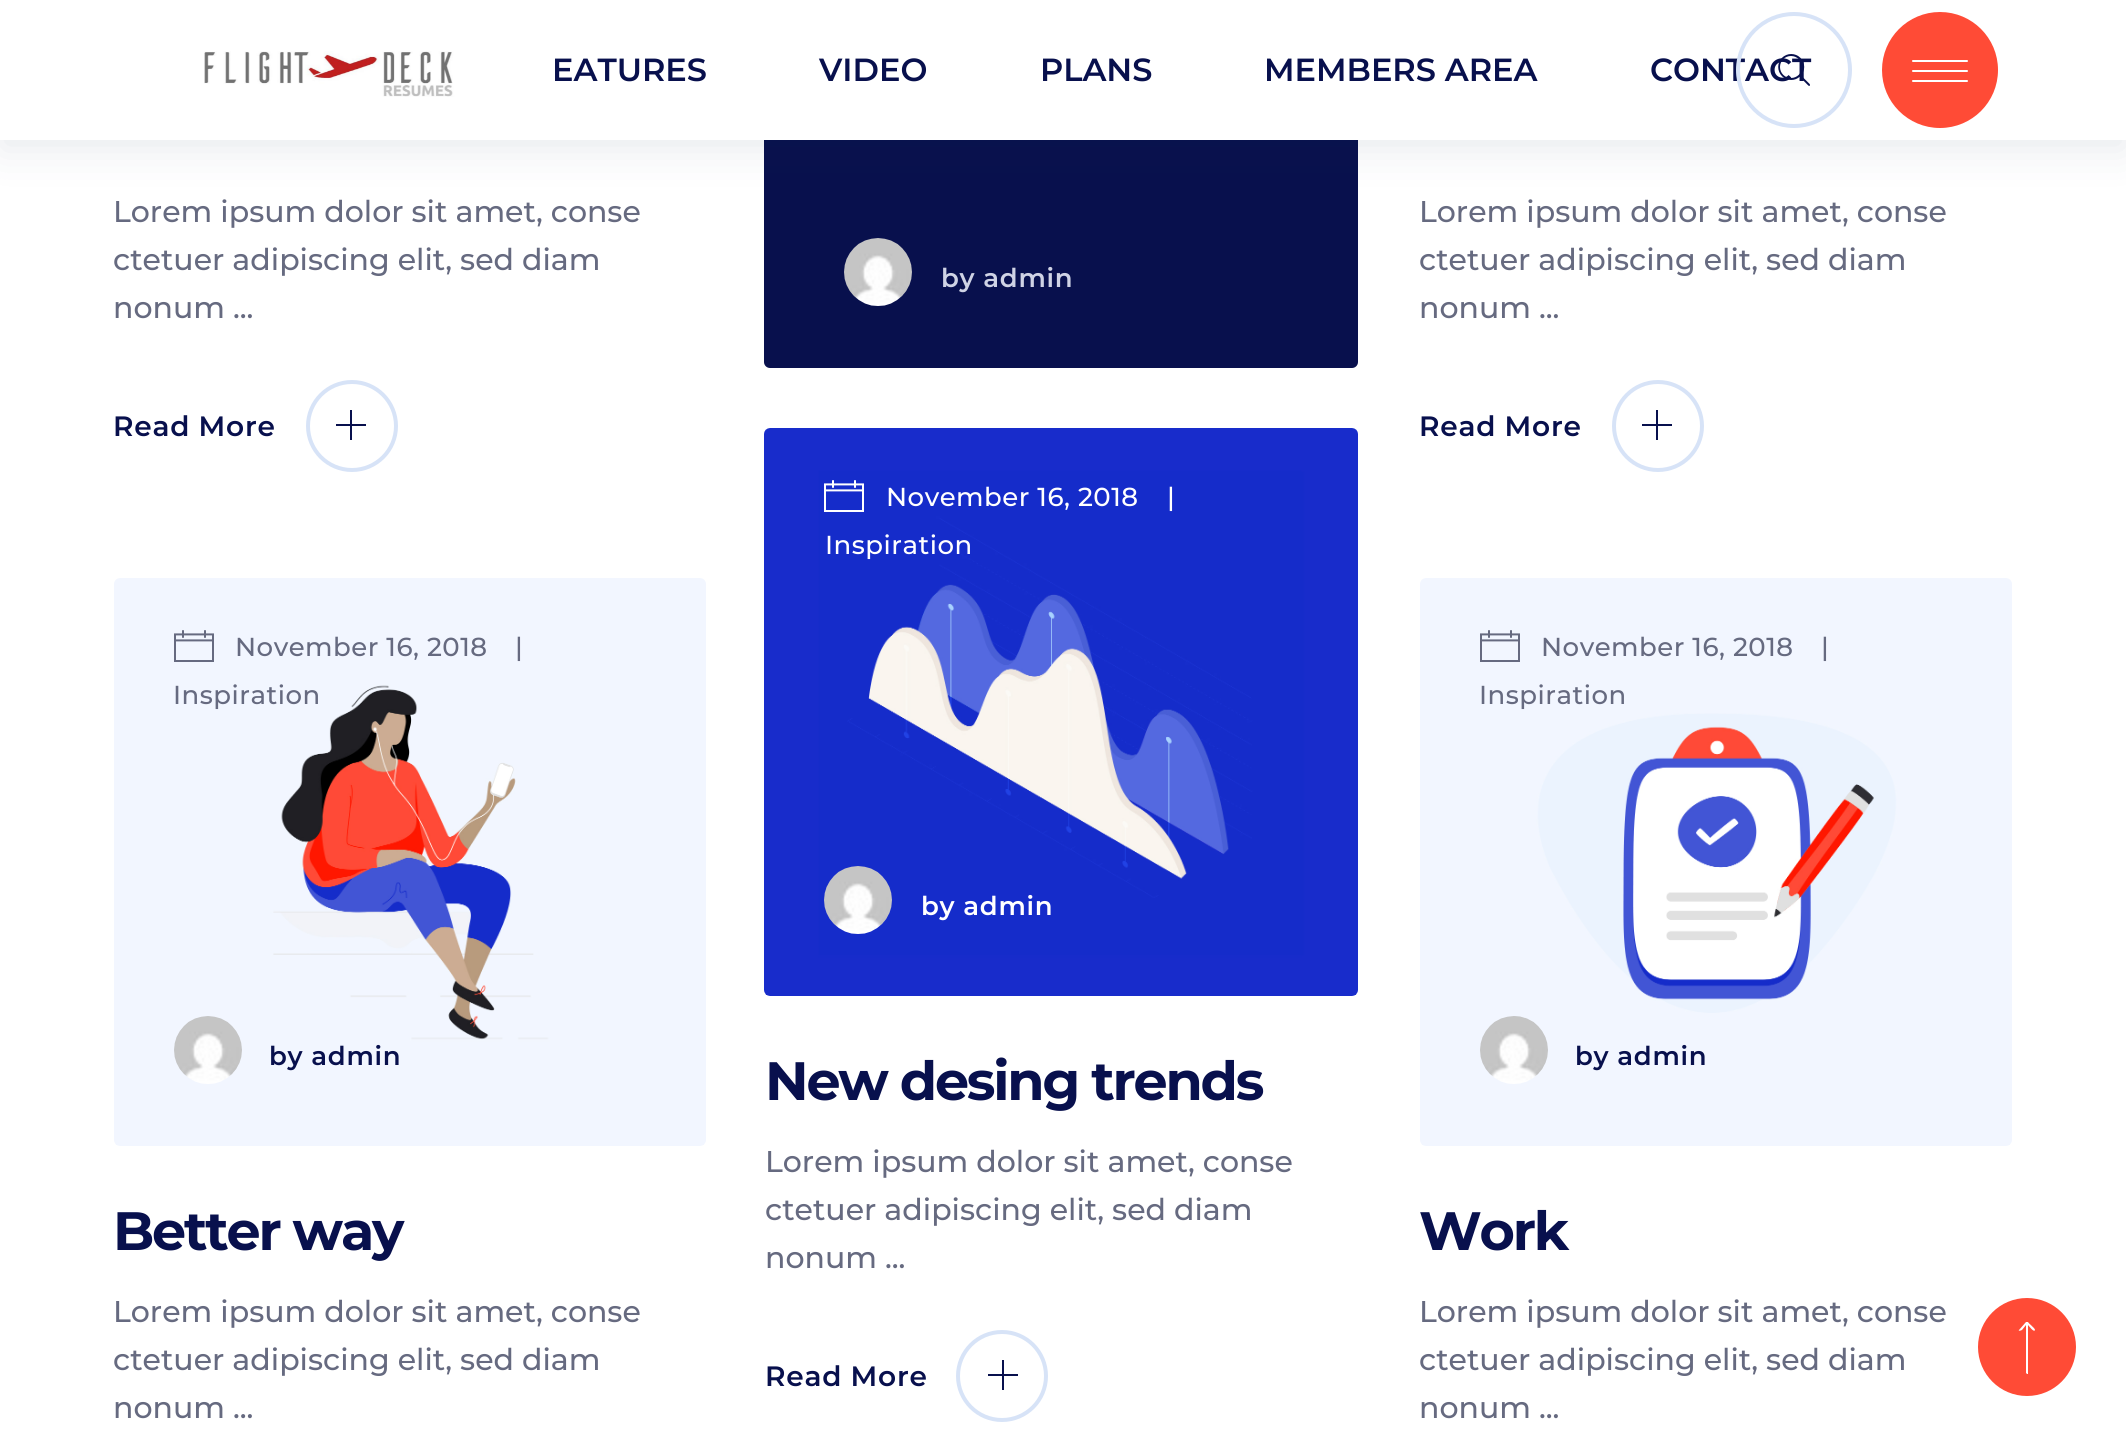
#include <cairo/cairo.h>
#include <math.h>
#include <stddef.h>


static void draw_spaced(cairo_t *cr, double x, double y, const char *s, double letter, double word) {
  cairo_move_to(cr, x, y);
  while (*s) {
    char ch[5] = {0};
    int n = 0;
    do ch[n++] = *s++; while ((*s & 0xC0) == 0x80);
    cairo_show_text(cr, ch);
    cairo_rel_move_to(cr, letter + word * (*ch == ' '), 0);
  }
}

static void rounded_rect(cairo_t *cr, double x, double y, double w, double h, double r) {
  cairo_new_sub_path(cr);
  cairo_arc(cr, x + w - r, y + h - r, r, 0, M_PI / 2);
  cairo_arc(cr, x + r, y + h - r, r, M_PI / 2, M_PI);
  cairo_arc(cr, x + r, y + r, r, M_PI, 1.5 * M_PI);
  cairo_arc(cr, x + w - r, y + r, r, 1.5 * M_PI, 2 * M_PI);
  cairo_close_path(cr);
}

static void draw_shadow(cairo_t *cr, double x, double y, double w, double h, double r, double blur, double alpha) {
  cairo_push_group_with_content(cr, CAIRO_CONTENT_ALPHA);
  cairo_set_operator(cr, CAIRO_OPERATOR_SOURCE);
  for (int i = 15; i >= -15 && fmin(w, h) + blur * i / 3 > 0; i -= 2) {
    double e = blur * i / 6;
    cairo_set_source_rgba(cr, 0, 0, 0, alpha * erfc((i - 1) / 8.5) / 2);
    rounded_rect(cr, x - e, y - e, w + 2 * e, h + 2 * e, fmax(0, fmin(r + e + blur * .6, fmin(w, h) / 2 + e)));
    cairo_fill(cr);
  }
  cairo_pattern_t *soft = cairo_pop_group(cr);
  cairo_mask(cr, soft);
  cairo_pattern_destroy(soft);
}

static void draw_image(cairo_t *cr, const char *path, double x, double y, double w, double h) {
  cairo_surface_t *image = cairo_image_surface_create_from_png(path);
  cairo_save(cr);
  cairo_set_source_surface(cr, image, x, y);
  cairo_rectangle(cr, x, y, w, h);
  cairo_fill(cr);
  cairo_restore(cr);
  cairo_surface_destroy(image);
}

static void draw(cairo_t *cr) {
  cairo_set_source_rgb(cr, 1, 1, 1);
  cairo_paint(cr);
  cairo_set_source_rgb(cr, 8 / 255.0, 16 / 255.0, 77 / 255.0);
  rounded_rect(cr, 764, -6, 594, 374, 6);
  cairo_fill(cr);
  cairo_set_source_rgb(cr, 23 / 255.0, 44 / 255.0, 82 / 255.0);
  draw_shadow(cr, 0, 10, 2126, 140, 0, 20, 0.1);
  cairo_set_source_rgb(cr, 1, 1, 1);
  cairo_rectangle(cr, 0, 0, 2126, 140);
  cairo_fill(cr);
  draw_image(cr, "images/1.png", 204, 51, 344, 46);
  cairo_set_source_rgb(cr, 1, 75 / 255.0, 54 / 255.0);
  cairo_arc(cr, 1940, 70, 58, 0, 2 * M_PI);
  cairo_fill(cr);
  cairo_set_source_rgb(cr, 1, 1, 1);
  rounded_rect(cr, 1912, 60, 56, 2, 1);
  cairo_fill(cr);
  rounded_rect(cr, 1912, 70, 56, 2, 1);
  cairo_fill(cr);
  rounded_rect(cr, 1912, 80, 56, 2, 1);
  cairo_fill(cr);
  cairo_arc(cr, 352, 426, 44, 0, 2 * M_PI);
  cairo_set_source_rgb(cr, 215 / 255.0, 227 / 255.0, 247 / 255.0);
  cairo_set_line_width(cr, 4);
  cairo_stroke(cr);
  cairo_set_source_rgb(cr, 8 / 255.0, 16 / 255.0, 77 / 255.0);
  cairo_rectangle(cr, 350, 410, 2, 30);
  cairo_fill(cr);
  cairo_rectangle(cr, 336, 424, 30, 2);
  cairo_fill(cr);
  draw_image(cr, "images/3.png", 844, 238, 68, 68);
  cairo_arc(cr, 1658, 426, 44, 0, 2 * M_PI);
  cairo_set_source_rgb(cr, 215 / 255.0, 227 / 255.0, 247 / 255.0);
  cairo_stroke(cr);
  cairo_set_source_rgb(cr, 8 / 255.0, 16 / 255.0, 77 / 255.0);
  cairo_rectangle(cr, 1656, 410, 2, 30);
  cairo_fill(cr);
  cairo_rectangle(cr, 1642, 424, 30, 2);
  cairo_fill(cr);
  draw_image(cr, "images/4.png", 114, 578, 592, 568);
  draw_image(cr, "images/5.png", 174, 630, 40, 32);
  draw_image(cr, "images/6.png", 174, 1016, 68, 68);
  draw_image(cr, "images/7.png", 764, 428, 594, 568);
  draw_image(cr, "images/8.png", 824, 480, 40, 32);
  draw_image(cr, "images/9.png", 824, 866, 68, 68);
  cairo_arc(cr, 1002, 1376, 44, 0, 2 * M_PI);
  cairo_set_source_rgb(cr, 215 / 255.0, 227 / 255.0, 247 / 255.0);
  cairo_stroke(cr);
  cairo_set_source_rgb(cr, 8 / 255.0, 16 / 255.0, 77 / 255.0);
  cairo_rectangle(cr, 1002, 1360, 2, 30);
  cairo_fill(cr);
  cairo_rectangle(cr, 988, 1374, 30, 2);
  cairo_fill(cr);
  draw_image(cr, "images/10.png", 1420, 578, 592, 568);
  draw_image(cr, "images/5.png", 1480, 630, 40, 32);
  draw_image(cr, "images/11.png", 1480, 1016, 68, 68);
  cairo_set_source_rgb(cr, 1, 75 / 255.0, 54 / 255.0);
  cairo_arc(cr, 2027, 1347, 49, 0, 2 * M_PI);
  cairo_fill(cr);
  cairo_set_source_rgb(cr, 1, 1, 1);
  cairo_new_path(cr);
  cairo_move_to(cr, 2027, 1322);
  cairo_line_to(cr, 2026, 1322);
  cairo_line_to(cr, 2019, 1330);
  cairo_curve_to(cr, 2018, 1331, 2020, 1331, 2022, 1330);
  cairo_line_to(cr, 2026, 1325);
  cairo_line_to(cr, 2026, 1373);
  cairo_line_to(cr, 2027, 1374);
  cairo_line_to(cr, 2028, 1374);
  cairo_line_to(cr, 2028, 1325);
  cairo_curve_to(cr, 2029, 1326, 2034, 1333, 2035, 1330);
  cairo_curve_to(cr, 2035, 1328, 2029, 1324, 2028, 1322);
  cairo_close_path(cr);
  cairo_fill(cr);
  cairo_select_font_face(cr, "Montserrat SemiBold", CAIRO_FONT_SLANT_NORMAL, CAIRO_FONT_WEIGHT_NORMAL);
  cairo_set_font_size(cr, 32);
  cairo_set_source_rgb(cr, 8 / 255.0, 16 / 255.0, 77 / 255.0);
  cairo_move_to(cr, 552, 81);
  cairo_show_text(cr, "EATURES");
  cairo_move_to(cr, 819, 81);
  cairo_show_text(cr, "VIDEO");
  cairo_move_to(cr, 1040, 81);
  cairo_show_text(cr, "PLANS");
  cairo_move_to(cr, 1264, 81);
  cairo_show_text(cr, "MEMBERS AREA");
  cairo_move_to(cr, 1650, 81);
  cairo_show_text(cr, "CONTACT");
  draw_image(cr, "images/2.png", 1736, 12, 116, 116);
  cairo_select_font_face(cr, "Montserrat Medium", CAIRO_FONT_SLANT_NORMAL, CAIRO_FONT_WEIGHT_NORMAL);
  cairo_set_font_size(cr, 30);
  cairo_set_source_rgb(cr, 102 / 255.0, 106 / 255.0, 128 / 255.0);
  cairo_move_to(cr, 113, 222);
  cairo_show_text(cr, "Lorem ipsum dolor sit amet, conse");
  cairo_move_to(cr, 113, 270);
  cairo_show_text(cr, "ctetuer adipiscing elit, sed diam");
  cairo_move_to(cr, 113, 318);
  cairo_show_text(cr, "nonum ...");
  cairo_select_font_face(cr, "Montserrat SemiBold", CAIRO_FONT_SLANT_NORMAL, CAIRO_FONT_WEIGHT_NORMAL);
  cairo_set_font_size(cr, 28);
  cairo_set_source_rgb(cr, 8 / 255.0, 16 / 255.0, 77 / 255.0);
  draw_spaced(cr, 113, 436, "Read More", 0.75, 0);
  cairo_set_font_size(cr, 26);
  cairo_set_source_rgb(cr, 207 / 255.0, 211 / 255.0, 229 / 255.0);
  draw_spaced(cr, 941, 287, "by admin", 0.75, 0);
  cairo_select_font_face(cr, "Montserrat Medium", CAIRO_FONT_SLANT_NORMAL, CAIRO_FONT_WEIGHT_NORMAL);
  cairo_set_font_size(cr, 30);
  cairo_set_source_rgb(cr, 102 / 255.0, 106 / 255.0, 128 / 255.0);
  cairo_move_to(cr, 1419, 222);
  cairo_show_text(cr, "Lorem ipsum dolor sit amet, conse");
  cairo_move_to(cr, 1419, 270);
  cairo_show_text(cr, "ctetuer adipiscing elit, sed diam");
  cairo_move_to(cr, 1419, 318);
  cairo_show_text(cr, "nonum ...");
  cairo_select_font_face(cr, "Montserrat SemiBold", CAIRO_FONT_SLANT_NORMAL, CAIRO_FONT_WEIGHT_NORMAL);
  cairo_set_font_size(cr, 28);
  cairo_set_source_rgb(cr, 8 / 255.0, 16 / 255.0, 77 / 255.0);
  draw_spaced(cr, 1419, 436, "Read More", 0.75, 0);
  cairo_select_font_face(cr, "Montserrat Medium", CAIRO_FONT_SLANT_NORMAL, CAIRO_FONT_WEIGHT_NORMAL);
  cairo_set_font_size(cr, 26);
  cairo_set_source_rgb(cr, 102 / 255.0, 106 / 255.0, 128 / 255.0);
  draw_spaced(cr, 235, 656, "November 16, 2018", 0.5, 0);
  draw_spaced(cr, 515, 656, "|", 0.5, 0);
  draw_spaced(cr, 173, 704, "Inspiration", 0.5, 0);
  cairo_select_font_face(cr, "Montserrat SemiBold", CAIRO_FONT_SLANT_NORMAL, CAIRO_FONT_WEIGHT_NORMAL);
  cairo_set_source_rgb(cr, 8 / 255.0, 16 / 255.0, 77 / 255.0);
  draw_spaced(cr, 269, 1065, "by admin", 0.75, 0);
  cairo_select_font_face(cr, "Montserrat", CAIRO_FONT_SLANT_NORMAL, CAIRO_FONT_WEIGHT_BOLD);
  cairo_set_font_size(cr, 54);
  draw_spaced(cr, 113, 1250, "Better way", -2.2, 0);
  cairo_select_font_face(cr, "Montserrat Medium", CAIRO_FONT_SLANT_NORMAL, CAIRO_FONT_WEIGHT_NORMAL);
  cairo_set_font_size(cr, 30);
  cairo_set_source_rgb(cr, 102 / 255.0, 106 / 255.0, 128 / 255.0);
  cairo_move_to(cr, 113, 1322);
  cairo_show_text(cr, "Lorem ipsum dolor sit amet, conse");
  cairo_move_to(cr, 113, 1370);
  cairo_show_text(cr, "ctetuer adipiscing elit, sed diam");
  cairo_move_to(cr, 113, 1418);
  cairo_show_text(cr, "nonum ...");
  cairo_set_font_size(cr, 26);
  cairo_set_source_rgb(cr, 1, 1, 1);
  draw_spaced(cr, 886, 506, "November 16, 2018", 0.5, 0);
  draw_spaced(cr, 1167, 506, "|", 0.5, 0);
  draw_spaced(cr, 825, 554, "Inspiration", 0.5, 0);
  cairo_select_font_face(cr, "Montserrat SemiBold", CAIRO_FONT_SLANT_NORMAL, CAIRO_FONT_WEIGHT_NORMAL);
  draw_spaced(cr, 921, 915, "by admin", 0.75, 0);
  cairo_select_font_face(cr, "Montserrat", CAIRO_FONT_SLANT_NORMAL, CAIRO_FONT_WEIGHT_BOLD);
  cairo_set_font_size(cr, 54);
  cairo_set_source_rgb(cr, 8 / 255.0, 16 / 255.0, 77 / 255.0);
  draw_spaced(cr, 765, 1100, "New desing trends", -2.2, 0);
  cairo_select_font_face(cr, "Montserrat Medium", CAIRO_FONT_SLANT_NORMAL, CAIRO_FONT_WEIGHT_NORMAL);
  cairo_set_font_size(cr, 30);
  cairo_set_source_rgb(cr, 102 / 255.0, 106 / 255.0, 128 / 255.0);
  cairo_move_to(cr, 765, 1172);
  cairo_show_text(cr, "Lorem ipsum dolor sit amet, conse");
  cairo_move_to(cr, 765, 1220);
  cairo_show_text(cr, "ctetuer adipiscing elit, sed diam");
  cairo_move_to(cr, 765, 1268);
  cairo_show_text(cr, "nonum ...");
  cairo_select_font_face(cr, "Montserrat SemiBold", CAIRO_FONT_SLANT_NORMAL, CAIRO_FONT_WEIGHT_NORMAL);
  cairo_set_font_size(cr, 28);
  cairo_set_source_rgb(cr, 8 / 255.0, 16 / 255.0, 77 / 255.0);
  draw_spaced(cr, 765, 1386, "Read More", 0.75, 0);
  cairo_select_font_face(cr, "Montserrat Medium", CAIRO_FONT_SLANT_NORMAL, CAIRO_FONT_WEIGHT_NORMAL);
  cairo_set_font_size(cr, 26);
  cairo_set_source_rgb(cr, 102 / 255.0, 106 / 255.0, 128 / 255.0);
  draw_spaced(cr, 1541, 656, "November 16, 2018", 0.5, 0);
  draw_spaced(cr, 1821, 656, "|", 0.5, 0);
  draw_spaced(cr, 1479, 704, "Inspiration", 0.5, 0);
  cairo_select_font_face(cr, "Montserrat SemiBold", CAIRO_FONT_SLANT_NORMAL, CAIRO_FONT_WEIGHT_NORMAL);
  cairo_set_source_rgb(cr, 8 / 255.0, 16 / 255.0, 77 / 255.0);
  draw_spaced(cr, 1575, 1065, "by admin", 0.75, 0);
  cairo_select_font_face(cr, "Montserrat", CAIRO_FONT_SLANT_NORMAL, CAIRO_FONT_WEIGHT_BOLD);
  cairo_set_font_size(cr, 54);
  draw_spaced(cr, 1419, 1250, "Work", -2.2, 0);
  cairo_select_font_face(cr, "Montserrat Medium", CAIRO_FONT_SLANT_NORMAL, CAIRO_FONT_WEIGHT_NORMAL);
  cairo_set_font_size(cr, 30);
  cairo_set_source_rgb(cr, 102 / 255.0, 106 / 255.0, 128 / 255.0);
  cairo_move_to(cr, 1419, 1322);
  cairo_show_text(cr, "Lorem ipsum dolor sit amet, conse");
  cairo_move_to(cr, 1419, 1370);
  cairo_show_text(cr, "ctetuer adipiscing elit, sed diam");
  cairo_move_to(cr, 1419, 1418);
  cairo_show_text(cr, "nonum ...");
}

int main(void) {
  cairo_surface_t *surface = cairo_image_surface_create(CAIRO_FORMAT_RGB24, 2126, 1445);
  cairo_t *cr = cairo_create(surface);
  cairo_font_options_t *options = cairo_font_options_create();
  cairo_font_options_set_hint_metrics(options, CAIRO_HINT_METRICS_OFF);
  cairo_font_options_set_hint_style(options, CAIRO_HINT_STYLE_NONE);
  cairo_set_font_options(cr, options);
  cairo_set_miter_limit(cr, 4);
  draw(cr);
  cairo_surface_write_to_png(surface, "out.png");
  cairo_font_options_destroy(options);
  cairo_destroy(cr);
  cairo_surface_destroy(surface);
  return 0;
}
